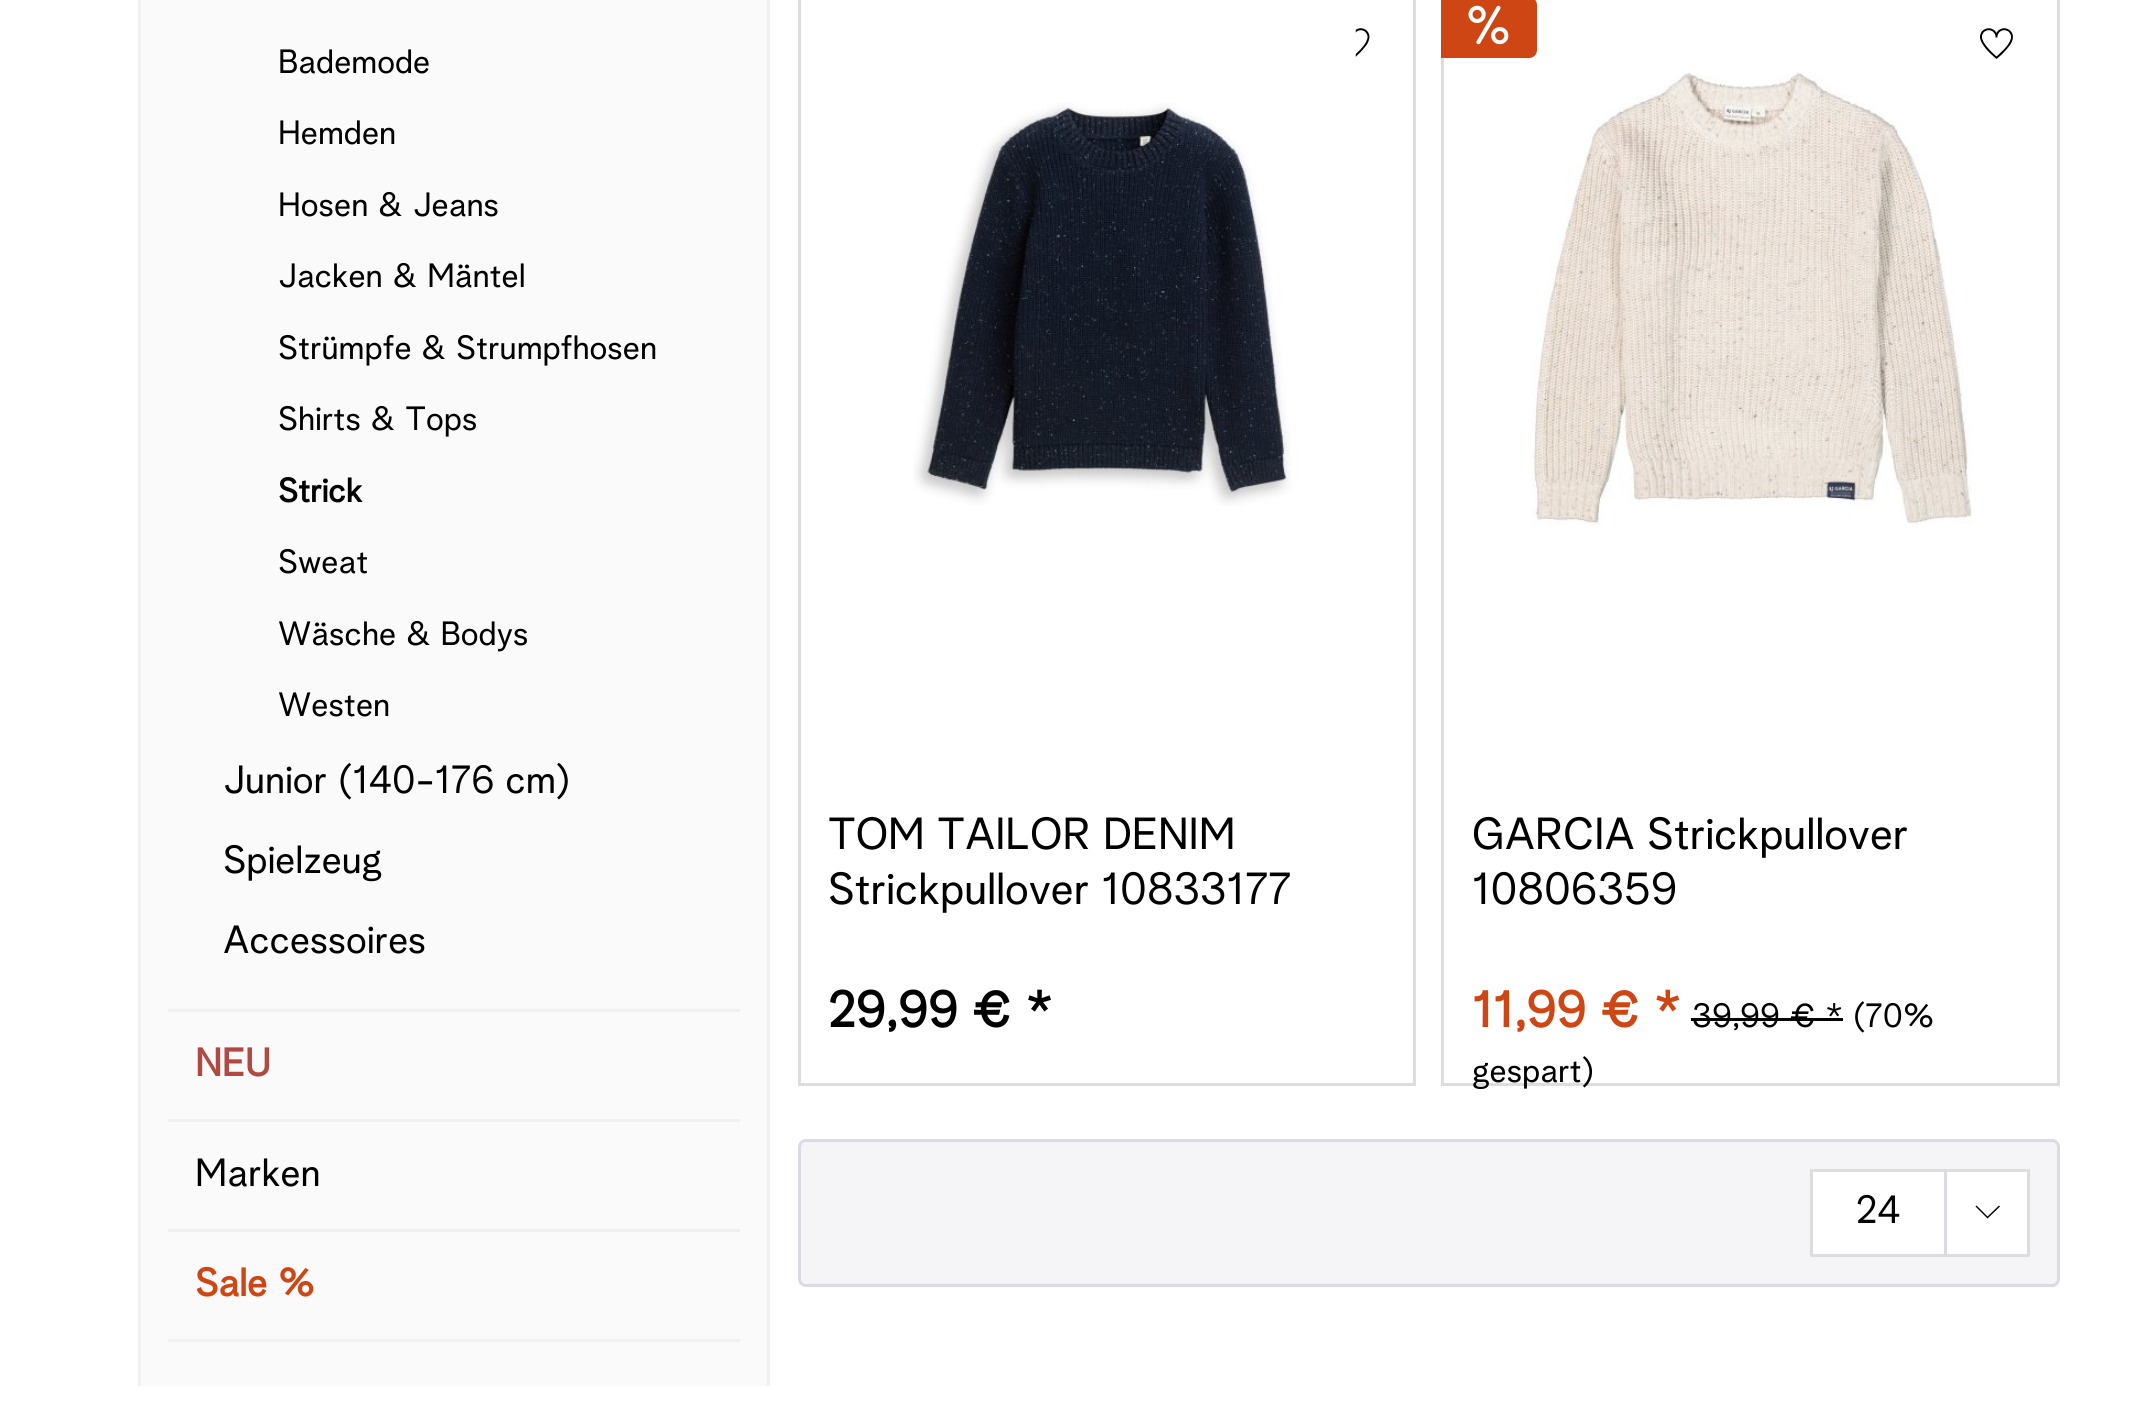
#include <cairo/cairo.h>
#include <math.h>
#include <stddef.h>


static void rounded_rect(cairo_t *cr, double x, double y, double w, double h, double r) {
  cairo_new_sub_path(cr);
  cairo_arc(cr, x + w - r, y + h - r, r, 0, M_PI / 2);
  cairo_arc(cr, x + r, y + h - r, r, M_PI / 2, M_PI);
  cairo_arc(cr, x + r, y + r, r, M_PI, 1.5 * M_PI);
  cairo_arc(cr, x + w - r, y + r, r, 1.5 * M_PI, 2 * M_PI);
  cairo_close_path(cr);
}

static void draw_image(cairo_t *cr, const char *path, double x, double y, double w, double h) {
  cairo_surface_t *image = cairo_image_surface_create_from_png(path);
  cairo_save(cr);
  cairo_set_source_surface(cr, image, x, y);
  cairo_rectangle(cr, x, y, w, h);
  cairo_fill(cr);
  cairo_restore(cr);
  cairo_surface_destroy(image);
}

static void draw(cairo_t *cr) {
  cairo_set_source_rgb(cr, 1, 1, 1);
  cairo_paint(cr);
  cairo_set_source_rgb(cr, 250 / 255.0, 250 / 255.0, 250 / 255.0);
  cairo_rectangle(cr, 141, 0, 626, 1386);
  cairo_fill(cr);
  cairo_save(cr);
  cairo_rectangle(cr, 138, 0, 632, 1386);
  cairo_clip(cr);
  cairo_rectangle(cr, 139.5, -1.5, 629, 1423);
  cairo_set_source_rgb(cr, 240 / 255.0, 240 / 255.0, 240 / 255.0);
  cairo_set_line_width(cr, 3);
  cairo_stroke(cr);
  cairo_restore(cr);
  cairo_set_source_rgb(cr, 240 / 255.0, 240 / 255.0, 240 / 255.0);
  cairo_rectangle(cr, 168, 1009, 572, 3);
  cairo_fill(cr);
  cairo_rectangle(cr, 168, 1119, 572, 3);
  cairo_fill(cr);
  cairo_rectangle(cr, 168, 1229, 572, 3);
  cairo_fill(cr);
  cairo_rectangle(cr, 168, 1339, 572, 3);
  cairo_fill(cr);
  cairo_rectangle(cr, 799.5, -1.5, 615, 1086);
  cairo_set_source_rgb(cr, 221 / 255.0, 221 / 255.0, 221 / 255.0);
  cairo_set_line_width(cr, 3);
  cairo_stroke(cr);
  draw_image(cr, "images/2.png", 1355, 28, 15, 30);
  draw_image(cr, "images/1.png", 913, 28, 443, 478);
  cairo_rectangle(cr, 1442.5, -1.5, 616, 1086);
  cairo_stroke(cr);
  cairo_set_source_rgb(cr, 207 / 255.0, 70 / 255.0, 21 / 255.0);
  cairo_new_path(cr);
  cairo_move_to(cr, 1441, -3);
  cairo_line_to(cr, 1529, -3);
  cairo_curve_to(cr, 1533.5, -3, 1537, 0.5, 1537, 5);
  cairo_line_to(cr, 1537, 50);
  cairo_curve_to(cr, 1537, 54.5, 1533.5, 58, 1529, 58);
  cairo_line_to(cr, 1441, 58);
  cairo_close_path(cr);
  cairo_fill(cr);
  draw_image(cr, "images/3.png", 1468, 5, 41, 40);
  draw_image(cr, "images/4.png", 1980, 28, 33, 31);
  draw_image(cr, "images/5.png", 1532, 72, 440, 453);
  cairo_set_source_rgb(cr, 0, 0, 0);
  cairo_rectangle(cr, 1691, 1018, 152, 3);
  cairo_fill(cr);
  cairo_set_source_rgb(cr, 245 / 255.0, 245 / 255.0, 248 / 255.0);
  rounded_rect(cr, 799.5, 1140.5, 1259, 145, 6.5);
  cairo_fill_preserve(cr);
  cairo_set_source_rgb(cr, 218 / 255.0, 218 / 255.0, 229 / 255.0);
  cairo_stroke(cr);
  cairo_set_source_rgb(cr, 1, 1, 1);
  cairo_rectangle(cr, 1811.5, 1170.5, 217, 85);
  cairo_fill_preserve(cr);
  cairo_set_source_rgb(cr, 221 / 255.0, 221 / 255.0, 221 / 255.0);
  cairo_stroke(cr);
  cairo_set_source_rgb(cr, 218 / 255.0, 218 / 255.0, 229 / 255.0);
  cairo_rectangle(cr, 1944, 1172, 3, 85);
  cairo_fill(cr);
  cairo_set_source_rgb(cr, 0, 0, 0);
  cairo_new_path(cr);
  cairo_move_to(cr, 2000, 1206.5);
  cairo_line_to(cr, 1987.5, 1218.5);
  cairo_line_to(cr, 1975.5, 1206.5);
  cairo_line_to(cr, 1976.5, 1205.5);
  cairo_line_to(cr, 1987.5, 1216.5);
  cairo_line_to(cr, 1999, 1205.5);
  cairo_close_path(cr);
  cairo_fill(cr);
  cairo_select_font_face(cr, "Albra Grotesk", CAIRO_FONT_SLANT_NORMAL, CAIRO_FONT_WEIGHT_NORMAL);
  cairo_set_font_size(cr, 33);
  cairo_move_to(cr, 278, 73);
  cairo_show_text(cr, "Bademode");
  cairo_move_to(cr, 278, 144);
  cairo_show_text(cr, "Hemden");
  cairo_move_to(cr, 278, 216);
  cairo_show_text(cr, "Hosen & Jeans");
  cairo_move_to(cr, 278, 287);
  cairo_show_text(cr, "Jacken & Mäntel");
  cairo_move_to(cr, 278, 359);
  cairo_show_text(cr, "Strümpfe & Strumpfhosen");
  cairo_move_to(cr, 278, 430);
  cairo_show_text(cr, "Shirts & Tops");
  cairo_select_font_face(cr, "Albra Grotesk", CAIRO_FONT_SLANT_NORMAL, CAIRO_FONT_WEIGHT_BOLD);
  cairo_move_to(cr, 278, 502);
  cairo_show_text(cr, "Strick");
  cairo_select_font_face(cr, "Albra Grotesk", CAIRO_FONT_SLANT_NORMAL, CAIRO_FONT_WEIGHT_NORMAL);
  cairo_move_to(cr, 278, 573);
  cairo_show_text(cr, "Sweat");
  cairo_move_to(cr, 278, 645);
  cairo_show_text(cr, "Wäsche & Bodys");
  cairo_move_to(cr, 278, 716);
  cairo_show_text(cr, "Westen");
  cairo_set_font_size(cr, 38.5);
  cairo_move_to(cr, 223, 793);
  cairo_show_text(cr, "Junior (140-176 cm)");
  cairo_move_to(cr, 223, 873);
  cairo_show_text(cr, "Spielzeug");
  cairo_move_to(cr, 223, 953);
  cairo_show_text(cr, "Accessoires");
  cairo_select_font_face(cr, "Albra Grotesk", CAIRO_FONT_SLANT_NORMAL, CAIRO_FONT_WEIGHT_BOLD);
  cairo_set_source_rgb(cr, 177 / 255.0, 73 / 255.0, 67 / 255.0);
  cairo_move_to(cr, 195, 1076);
  cairo_show_text(cr, "NEU");
  cairo_select_font_face(cr, "Albra Grotesk", CAIRO_FONT_SLANT_NORMAL, CAIRO_FONT_WEIGHT_NORMAL);
  cairo_set_source_rgb(cr, 0, 0, 0);
  cairo_move_to(cr, 195, 1186);
  cairo_show_text(cr, "Marken");
  cairo_select_font_face(cr, "Albra Grotesk", CAIRO_FONT_SLANT_NORMAL, CAIRO_FONT_WEIGHT_BOLD);
  cairo_set_source_rgb(cr, 207 / 255.0, 70 / 255.0, 21 / 255.0);
  cairo_move_to(cr, 195, 1296);
  cairo_show_text(cr, "Sale %");
  cairo_select_font_face(cr, "Albra Grotesk", CAIRO_FONT_SLANT_NORMAL, CAIRO_FONT_WEIGHT_NORMAL);
  cairo_set_font_size(cr, 44);
  cairo_set_source_rgb(cr, 0, 0, 0);
  cairo_move_to(cr, 828, 849);
  cairo_show_text(cr, "TOM TAILOR DENIM");
  cairo_move_to(cr, 828, 904);
  cairo_show_text(cr, "Strickpullover 10833177");
  cairo_select_font_face(cr, "Albra Grotesk", CAIRO_FONT_SLANT_NORMAL, CAIRO_FONT_WEIGHT_BOLD);
  cairo_set_font_size(cr, 49.5);
  cairo_move_to(cr, 828, 1027);
  cairo_show_text(cr, "29,99 € *");
  cairo_select_font_face(cr, "Albra Grotesk", CAIRO_FONT_SLANT_NORMAL, CAIRO_FONT_WEIGHT_NORMAL);
  cairo_set_font_size(cr, 44);
  cairo_move_to(cr, 1472, 849);
  cairo_show_text(cr, "GARCIA Strickpullover");
  cairo_move_to(cr, 1472, 904);
  cairo_show_text(cr, "10806359");
  cairo_select_font_face(cr, "Albra Grotesk", CAIRO_FONT_SLANT_NORMAL, CAIRO_FONT_WEIGHT_BOLD);
  cairo_set_font_size(cr, 49.5);
  cairo_set_source_rgb(cr, 207 / 255.0, 70 / 255.0, 21 / 255.0);
  cairo_move_to(cr, 1472, 1027);
  cairo_show_text(cr, "11,99 € *");
  cairo_select_font_face(cr, "Albra Grotesk", CAIRO_FONT_SLANT_NORMAL, CAIRO_FONT_WEIGHT_NORMAL);
  cairo_set_font_size(cr, 33);
  cairo_set_source_rgb(cr, 0, 0, 0);
  cairo_move_to(cr, 1692, 1027);
  cairo_show_text(cr, "39,99 € * (70%");
  cairo_move_to(cr, 1472, 1082);
  cairo_show_text(cr, "gespart)");
  cairo_set_font_size(cr, 38.5);
  cairo_move_to(cr, 1856, 1223);
  cairo_show_text(cr, "24");
}

int main(void) {
  cairo_surface_t *surface = cairo_image_surface_create(CAIRO_FORMAT_RGB24, 2140, 1420);
  cairo_t *cr = cairo_create(surface);
  cairo_font_options_t *options = cairo_font_options_create();
  cairo_font_options_set_hint_metrics(options, CAIRO_HINT_METRICS_OFF);
  cairo_font_options_set_hint_style(options, CAIRO_HINT_STYLE_NONE);
  cairo_set_font_options(cr, options);
  cairo_set_miter_limit(cr, 4);
  draw(cr);
  cairo_surface_write_to_png(surface, "out.png");
  cairo_font_options_destroy(options);
  cairo_destroy(cr);
  cairo_surface_destroy(surface);
  return 0;
}
